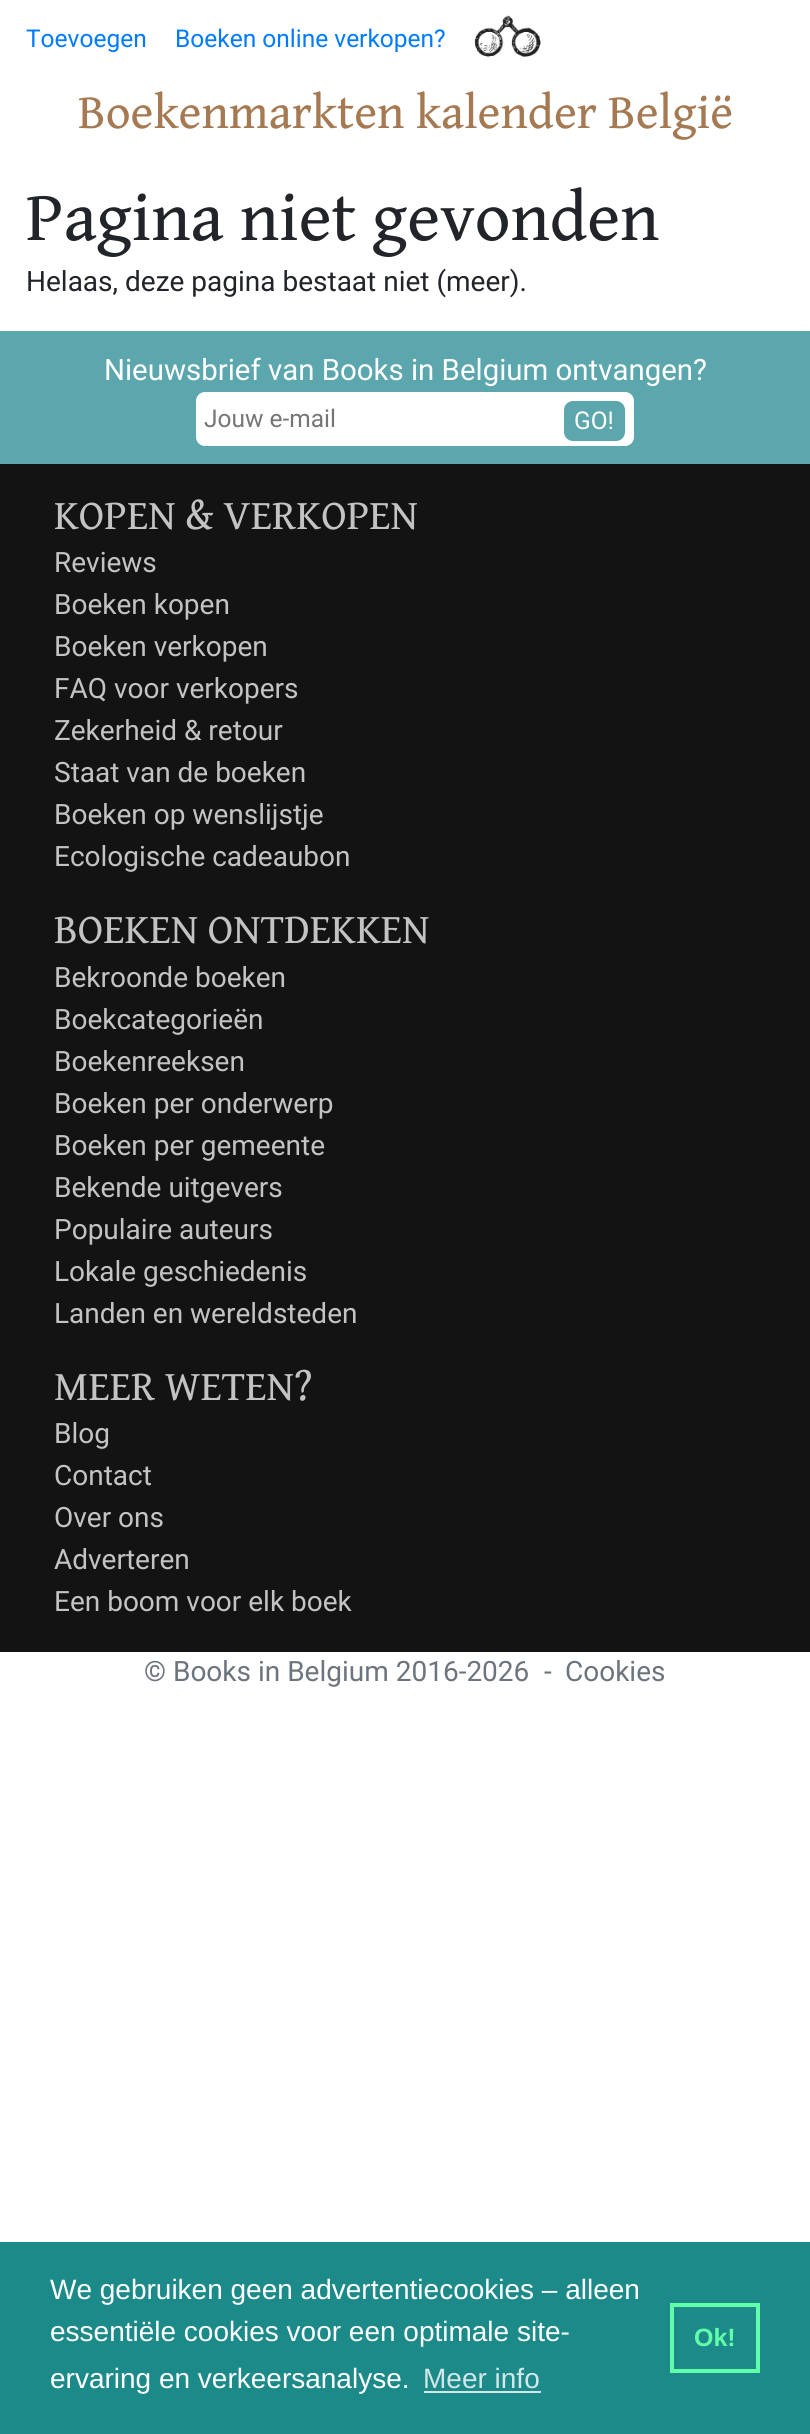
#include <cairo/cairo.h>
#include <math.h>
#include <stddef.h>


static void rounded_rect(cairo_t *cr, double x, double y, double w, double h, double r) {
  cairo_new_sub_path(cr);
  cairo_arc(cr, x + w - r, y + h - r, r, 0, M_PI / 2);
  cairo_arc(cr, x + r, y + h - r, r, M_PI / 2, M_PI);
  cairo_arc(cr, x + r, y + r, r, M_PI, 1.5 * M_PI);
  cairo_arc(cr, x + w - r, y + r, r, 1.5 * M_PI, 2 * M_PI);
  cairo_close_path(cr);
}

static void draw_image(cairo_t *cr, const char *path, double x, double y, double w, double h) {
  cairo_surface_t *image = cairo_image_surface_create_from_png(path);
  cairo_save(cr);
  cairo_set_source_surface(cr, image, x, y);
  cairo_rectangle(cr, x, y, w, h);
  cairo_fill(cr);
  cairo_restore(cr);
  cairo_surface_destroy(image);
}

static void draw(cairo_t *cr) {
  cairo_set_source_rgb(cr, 1, 1, 1);
  cairo_paint(cr);
  draw_image(cr, "images/1.png", 474, 15, 67, 42);
  cairo_set_source_rgb(cr, 92 / 255.0, 167 / 255.0, 174 / 255.0);
  cairo_rectangle(cr, 0, 331, 810, 133);
  cairo_fill(cr);
  cairo_set_source_rgb(cr, 1, 1, 1);
  rounded_rect(cr, 196, 392, 438, 54, 9);
  cairo_fill(cr);
  cairo_set_source_rgb(cr, 92 / 255.0, 167 / 255.0, 174 / 255.0);
  rounded_rect(cr, 564, 401, 61, 40, 9);
  cairo_fill(cr);
  cairo_set_source_rgb(cr, 19 / 255.0, 19 / 255.0, 19 / 255.0);
  cairo_rectangle(cr, 0, 464, 810, 1188);
  cairo_fill(cr);
  cairo_set_source_rgb(cr, 29 / 255.0, 138 / 255.0, 138 / 255.0);
  cairo_rectangle(cr, 0, 2242, 810, 192);
  cairo_fill(cr);
  cairo_set_source_rgb(cr, 210 / 255.0, 232 / 255.0, 232 / 255.0);
  cairo_rectangle(cr, 424, 2391, 117, 2);
  cairo_fill(cr);
  cairo_rectangle(cr, 672, 2305, 86, 66);
  cairo_set_source_rgb(cr, 98 / 255.0, 1, 170 / 255.0);
  cairo_set_line_width(cr, 4);
  cairo_stroke(cr);
  cairo_select_font_face(cr, "Roboto", CAIRO_FONT_SLANT_NORMAL, CAIRO_FONT_WEIGHT_NORMAL);
  cairo_set_font_size(cr, 24.5);
  cairo_set_source_rgb(cr, 0, 123 / 255.0, 1);
  cairo_move_to(cr, 26, 47);
  cairo_show_text(cr, "Toevoegen");
  cairo_move_to(cr, 175, 47);
  cairo_show_text(cr, "Boeken online verkopen?");
  cairo_select_font_face(cr, "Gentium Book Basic", CAIRO_FONT_SLANT_NORMAL, CAIRO_FONT_WEIGHT_NORMAL);
  cairo_set_font_size(cr, 48.75);
  cairo_set_source_rgb(cr, 165 / 255.0, 121 / 255.0, 82 / 255.0);
  cairo_move_to(cr, 78, 128);
  cairo_show_text(cr, "Boekenmarkten kalender België");
  cairo_set_font_size(cr, 70);
  cairo_set_source_rgb(cr, 33 / 255.0, 37 / 255.0, 41 / 255.0);
  cairo_move_to(cr, 26, 240);
  cairo_show_text(cr, "Pagina niet gevonden");
  cairo_select_font_face(cr, "Roboto", CAIRO_FONT_SLANT_NORMAL, CAIRO_FONT_WEIGHT_NORMAL);
  cairo_set_font_size(cr, 28);
  cairo_move_to(cr, 26, 291);
  cairo_show_text(cr, "Helaas, deze pagina bestaat niet (meer).");
  cairo_set_font_size(cr, 29.4);
  cairo_set_source_rgb(cr, 1, 1, 1);
  cairo_move_to(cr, 104, 380);
  cairo_show_text(cr, "Nieuwsbrief van Books in Belgium ontvangen?");
  cairo_set_font_size(cr, 24.5);
  cairo_set_source_rgb(cr, 117 / 255.0, 117 / 255.0, 117 / 255.0);
  cairo_move_to(cr, 204, 427);
  cairo_show_text(cr, "Jouw e-mail");
  cairo_set_source_rgb(cr, 1, 1, 1);
  cairo_move_to(cr, 574, 429);
  cairo_show_text(cr, "GO!");
  cairo_select_font_face(cr, "Gentium Book Basic", CAIRO_FONT_SLANT_NORMAL, CAIRO_FONT_WEIGHT_NORMAL);
  cairo_set_font_size(cr, 42);
  cairo_set_source_rgb(cr, 195 / 255.0, 195 / 255.0, 195 / 255.0);
  cairo_move_to(cr, 54, 529);
  cairo_show_text(cr, "KOPEN & VERKOPEN");
  cairo_select_font_face(cr, "Roboto", CAIRO_FONT_SLANT_NORMAL, CAIRO_FONT_WEIGHT_NORMAL);
  cairo_set_font_size(cr, 28);
  cairo_move_to(cr, 54, 572);
  cairo_show_text(cr, "Reviews");
  cairo_move_to(cr, 54, 614);
  cairo_show_text(cr, "Boeken kopen");
  cairo_move_to(cr, 54, 656);
  cairo_show_text(cr, "Boeken verkopen");
  cairo_move_to(cr, 54, 698);
  cairo_show_text(cr, "FAQ voor verkopers");
  cairo_move_to(cr, 54, 740);
  cairo_show_text(cr, "Zekerheid & retour");
  cairo_move_to(cr, 54, 782);
  cairo_show_text(cr, "Staat van de boeken");
  cairo_move_to(cr, 54, 824);
  cairo_show_text(cr, "Boeken op wenslijstje");
  cairo_move_to(cr, 54, 866);
  cairo_show_text(cr, "Ecologische cadeaubon");
  cairo_select_font_face(cr, "Gentium Book Basic", CAIRO_FONT_SLANT_NORMAL, CAIRO_FONT_WEIGHT_NORMAL);
  cairo_set_font_size(cr, 42);
  cairo_move_to(cr, 54, 943);
  cairo_show_text(cr, "BOEKEN ONTDEKKEN");
  cairo_select_font_face(cr, "Roboto", CAIRO_FONT_SLANT_NORMAL, CAIRO_FONT_WEIGHT_NORMAL);
  cairo_set_font_size(cr, 28);
  cairo_move_to(cr, 54, 987);
  cairo_show_text(cr, "Bekroonde boeken");
  cairo_move_to(cr, 54, 1029);
  cairo_show_text(cr, "Boekcategorieën");
  cairo_move_to(cr, 54, 1071);
  cairo_show_text(cr, "Boekenreeksen");
  cairo_move_to(cr, 54, 1113);
  cairo_show_text(cr, "Boeken per onderwerp");
  cairo_move_to(cr, 54, 1155);
  cairo_show_text(cr, "Boeken per gemeente");
  cairo_move_to(cr, 54, 1197);
  cairo_show_text(cr, "Bekende uitgevers");
  cairo_move_to(cr, 54, 1239);
  cairo_show_text(cr, "Populaire auteurs");
  cairo_move_to(cr, 54, 1281);
  cairo_show_text(cr, "Lokale geschiedenis");
  cairo_move_to(cr, 54, 1323);
  cairo_show_text(cr, "Landen en wereldsteden");
  cairo_select_font_face(cr, "Gentium Book Basic", CAIRO_FONT_SLANT_NORMAL, CAIRO_FONT_WEIGHT_NORMAL);
  cairo_set_font_size(cr, 42);
  cairo_move_to(cr, 54, 1400);
  cairo_show_text(cr, "MEER WETEN?");
  cairo_select_font_face(cr, "Roboto", CAIRO_FONT_SLANT_NORMAL, CAIRO_FONT_WEIGHT_NORMAL);
  cairo_set_font_size(cr, 28);
  cairo_move_to(cr, 54, 1443);
  cairo_show_text(cr, "Blog");
  cairo_move_to(cr, 54, 1485);
  cairo_show_text(cr, "Contact");
  cairo_move_to(cr, 54, 1527);
  cairo_show_text(cr, "Over ons");
  cairo_move_to(cr, 54, 1569);
  cairo_show_text(cr, "Adverteren");
  cairo_move_to(cr, 54, 1611);
  cairo_show_text(cr, "Een boom voor elk boek");
  cairo_set_source_rgb(cr, 108 / 255.0, 117 / 255.0, 125 / 255.0);
  cairo_move_to(cr, 144, 1681);
  cairo_show_text(cr, "© Books in Belgium 2016-2026");
  cairo_move_to(cr, 544, 1681);
  cairo_show_text(cr, "-");
  cairo_move_to(cr, 565, 1681);
  cairo_show_text(cr, "Cookies");
  cairo_select_font_face(cr, "Liberation Sans", CAIRO_FONT_SLANT_NORMAL, CAIRO_FONT_WEIGHT_NORMAL);
  cairo_set_source_rgb(cr, 1, 1, 1);
  cairo_move_to(cr, 50, 2299);
  cairo_show_text(cr, "We gebruiken geen advertentiecookies – alleen");
  cairo_move_to(cr, 50, 2341);
  cairo_show_text(cr, "essentiële cookies voor een optimale site-");
  cairo_move_to(cr, 50, 2388);
  cairo_show_text(cr, "ervaring en verkeersanalyse.");
  cairo_set_source_rgb(cr, 210 / 255.0, 232 / 255.0, 232 / 255.0);
  cairo_move_to(cr, 423, 2388);
  cairo_show_text(cr, "Meer info");
  cairo_select_font_face(cr, "Liberation Sans", CAIRO_FONT_SLANT_NORMAL, CAIRO_FONT_WEIGHT_BOLD);
  cairo_set_font_size(cr, 25);
  cairo_set_source_rgb(cr, 98 / 255.0, 1, 170 / 255.0);
  cairo_move_to(cr, 694, 2346);
  cairo_show_text(cr, "Ok!");
}

int main(void) {
  cairo_surface_t *surface = cairo_image_surface_create(CAIRO_FORMAT_RGB24, 810, 2434);
  cairo_t *cr = cairo_create(surface);
  cairo_font_options_t *options = cairo_font_options_create();
  cairo_font_options_set_hint_metrics(options, CAIRO_HINT_METRICS_OFF);
  cairo_font_options_set_hint_style(options, CAIRO_HINT_STYLE_NONE);
  cairo_set_font_options(cr, options);
  cairo_set_miter_limit(cr, 4);
  draw(cr);
  cairo_surface_write_to_png(surface, "out.png");
  cairo_font_options_destroy(options);
  cairo_destroy(cr);
  cairo_surface_destroy(surface);
  return 0;
}
